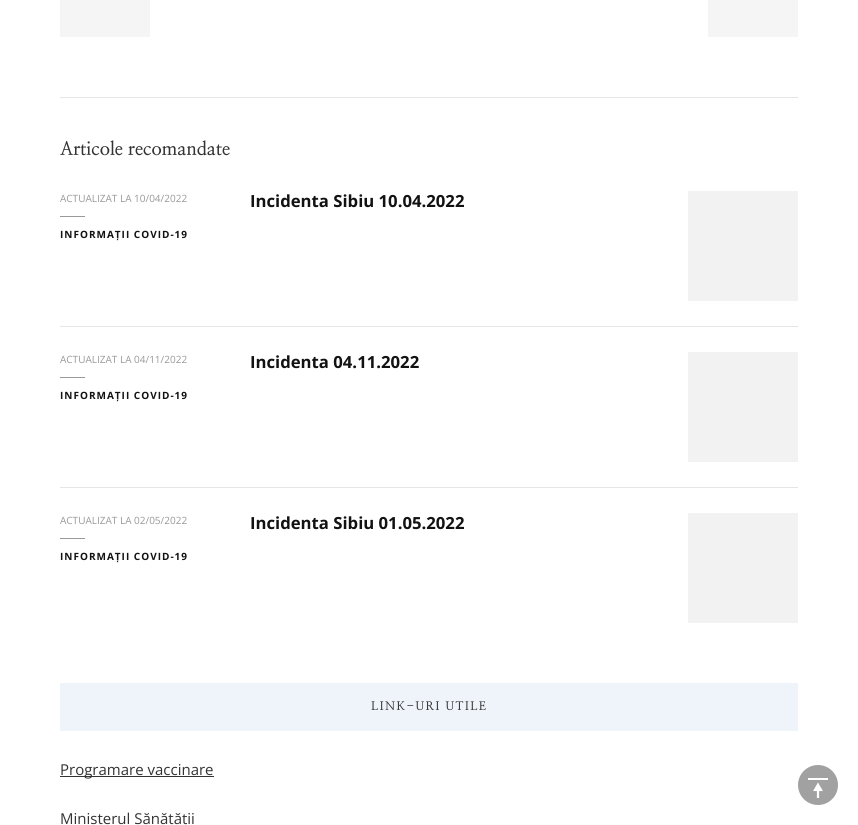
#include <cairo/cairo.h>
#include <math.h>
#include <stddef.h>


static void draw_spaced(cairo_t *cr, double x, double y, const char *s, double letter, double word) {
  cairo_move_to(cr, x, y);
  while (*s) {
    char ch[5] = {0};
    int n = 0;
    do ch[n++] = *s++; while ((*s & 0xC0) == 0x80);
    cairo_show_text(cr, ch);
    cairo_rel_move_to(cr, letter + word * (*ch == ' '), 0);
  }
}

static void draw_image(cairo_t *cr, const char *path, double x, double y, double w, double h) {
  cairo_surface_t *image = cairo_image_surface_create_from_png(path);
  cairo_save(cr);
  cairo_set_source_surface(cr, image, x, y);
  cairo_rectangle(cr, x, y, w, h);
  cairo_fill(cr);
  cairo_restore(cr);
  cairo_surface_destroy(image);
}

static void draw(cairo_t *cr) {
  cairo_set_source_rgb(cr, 1, 1, 1);
  cairo_paint(cr);
  cairo_set_source_rgb(cr, 245 / 255.0, 245 / 255.0, 245 / 255.0);
  cairo_rectangle(cr, 60, 0, 90, 37);
  cairo_fill(cr);
  cairo_rectangle(cr, 708, 0, 90, 37);
  cairo_fill(cr);
  cairo_set_source_rgb(cr, 230 / 255.0, 230 / 255.0, 230 / 255.0);
  cairo_rectangle(cr, 60, 97, 738, 1);
  cairo_fill(cr);
  cairo_rectangle(cr, 60, 326, 738, 1);
  cairo_fill(cr);
  cairo_set_source_rgb(cr, 153 / 255.0, 153 / 255.0, 153 / 255.0);
  cairo_rectangle(cr, 60, 216, 25, 1);
  cairo_fill(cr);
  cairo_set_source_rgb(cr, 242 / 255.0, 242 / 255.0, 242 / 255.0);
  cairo_rectangle(cr, 688, 191, 110, 110);
  cairo_fill(cr);
  cairo_set_source_rgb(cr, 230 / 255.0, 230 / 255.0, 230 / 255.0);
  cairo_rectangle(cr, 60, 487, 738, 1);
  cairo_fill(cr);
  cairo_set_source_rgb(cr, 153 / 255.0, 153 / 255.0, 153 / 255.0);
  cairo_rectangle(cr, 60, 377, 25, 1);
  cairo_fill(cr);
  cairo_set_source_rgb(cr, 242 / 255.0, 242 / 255.0, 242 / 255.0);
  cairo_rectangle(cr, 688, 352, 110, 110);
  cairo_fill(cr);
  cairo_set_source_rgb(cr, 153 / 255.0, 153 / 255.0, 153 / 255.0);
  cairo_rectangle(cr, 60, 538, 25, 1);
  cairo_fill(cr);
  cairo_set_source_rgb(cr, 242 / 255.0, 242 / 255.0, 242 / 255.0);
  cairo_rectangle(cr, 688, 513, 110, 110);
  cairo_fill(cr);
  cairo_set_source_rgb(cr, 238 / 255.0, 244 / 255.0, 250 / 255.0);
  cairo_rectangle(cr, 60, 683, 738, 48);
  cairo_fill(cr);
  cairo_set_source_rgb(cr, 51 / 255.0, 51 / 255.0, 51 / 255.0);
  cairo_rectangle(cr, 60, 776, 154, 1);
  cairo_fill(cr);
  cairo_set_source_rgb(cr, 161 / 255.0, 161 / 255.0, 161 / 255.0);
  cairo_arc(cr, 818, 785, 20, 0, 2 * M_PI);
  cairo_fill(cr);
  draw_image(cr, "images/1.png", 808, 778, 20, 20);
  cairo_select_font_face(cr, "NanumMyeongjo", CAIRO_FONT_SLANT_NORMAL, CAIRO_FONT_WEIGHT_BOLD);
  cairo_set_font_size(cr, 18.25);
  cairo_set_source_rgb(cr, 51 / 255.0, 51 / 255.0, 51 / 255.0);
  cairo_move_to(cr, 60, 155);
  cairo_show_text(cr, "Articole recomandate");
  cairo_select_font_face(cr, "Open Sans", CAIRO_FONT_SLANT_NORMAL, CAIRO_FONT_WEIGHT_NORMAL);
  cairo_set_font_size(cr, 10);
  cairo_set_source_rgb(cr, 153 / 255.0, 153 / 255.0, 153 / 255.0);
  cairo_move_to(cr, 60, 202);
  cairo_show_text(cr, "ACTUALIZAT LA 10/04/2022");
  cairo_select_font_face(cr, "Open Sans", CAIRO_FONT_SLANT_NORMAL, CAIRO_FONT_WEIGHT_BOLD);
  cairo_set_source_rgb(cr, 18 / 255.0, 18 / 255.0, 18 / 255.0);
  draw_spaced(cr, 60, 238, "INFORMAȚII COVID-19", 1, 0);
  cairo_set_font_size(cr, 16.7);
  cairo_move_to(cr, 250, 207);
  cairo_show_text(cr, "Incidenta Sibiu 10.04.2022");
  cairo_select_font_face(cr, "Open Sans", CAIRO_FONT_SLANT_NORMAL, CAIRO_FONT_WEIGHT_NORMAL);
  cairo_set_font_size(cr, 10);
  cairo_set_source_rgb(cr, 153 / 255.0, 153 / 255.0, 153 / 255.0);
  cairo_move_to(cr, 60, 363);
  cairo_show_text(cr, "ACTUALIZAT LA 04/11/2022");
  cairo_select_font_face(cr, "Open Sans", CAIRO_FONT_SLANT_NORMAL, CAIRO_FONT_WEIGHT_BOLD);
  cairo_set_source_rgb(cr, 18 / 255.0, 18 / 255.0, 18 / 255.0);
  draw_spaced(cr, 60, 399, "INFORMAȚII COVID-19", 1, 0);
  cairo_set_font_size(cr, 16.7);
  cairo_move_to(cr, 250, 368);
  cairo_show_text(cr, "Incidenta 04.11.2022");
  cairo_select_font_face(cr, "Open Sans", CAIRO_FONT_SLANT_NORMAL, CAIRO_FONT_WEIGHT_NORMAL);
  cairo_set_font_size(cr, 10);
  cairo_set_source_rgb(cr, 153 / 255.0, 153 / 255.0, 153 / 255.0);
  cairo_move_to(cr, 60, 524);
  cairo_show_text(cr, "ACTUALIZAT LA 02/05/2022");
  cairo_select_font_face(cr, "Open Sans", CAIRO_FONT_SLANT_NORMAL, CAIRO_FONT_WEIGHT_BOLD);
  cairo_set_source_rgb(cr, 18 / 255.0, 18 / 255.0, 18 / 255.0);
  draw_spaced(cr, 60, 560, "INFORMAȚII COVID-19", 1, 0);
  cairo_set_font_size(cr, 16.7);
  cairo_move_to(cr, 250, 529);
  cairo_show_text(cr, "Incidenta Sibiu 01.05.2022");
  cairo_select_font_face(cr, "NanumMyeongjo", CAIRO_FONT_SLANT_NORMAL, CAIRO_FONT_WEIGHT_BOLD);
  cairo_set_font_size(cr, 11.75);
  cairo_set_source_rgb(cr, 51 / 255.0, 51 / 255.0, 51 / 255.0);
  draw_spaced(cr, 371, 710, "LINK-URI UTILE", 1.5, 0);
  cairo_select_font_face(cr, "Open Sans", CAIRO_FONT_SLANT_NORMAL, CAIRO_FONT_WEIGHT_NORMAL);
  cairo_set_font_size(cr, 15);
  cairo_move_to(cr, 60, 775);
  cairo_show_text(cr, "Programare vaccinare");
  cairo_move_to(cr, 60, 824);
  cairo_show_text(cr, "Ministerul Sănătății");
}

int main(void) {
  cairo_surface_t *surface = cairo_image_surface_create(CAIRO_FORMAT_RGB24, 858, 825);
  cairo_t *cr = cairo_create(surface);
  cairo_font_options_t *options = cairo_font_options_create();
  cairo_font_options_set_hint_metrics(options, CAIRO_HINT_METRICS_OFF);
  cairo_font_options_set_hint_style(options, CAIRO_HINT_STYLE_NONE);
  cairo_set_font_options(cr, options);
  cairo_set_miter_limit(cr, 4);
  draw(cr);
  cairo_surface_write_to_png(surface, "out.png");
  cairo_font_options_destroy(options);
  cairo_destroy(cr);
  cairo_surface_destroy(surface);
  return 0;
}
